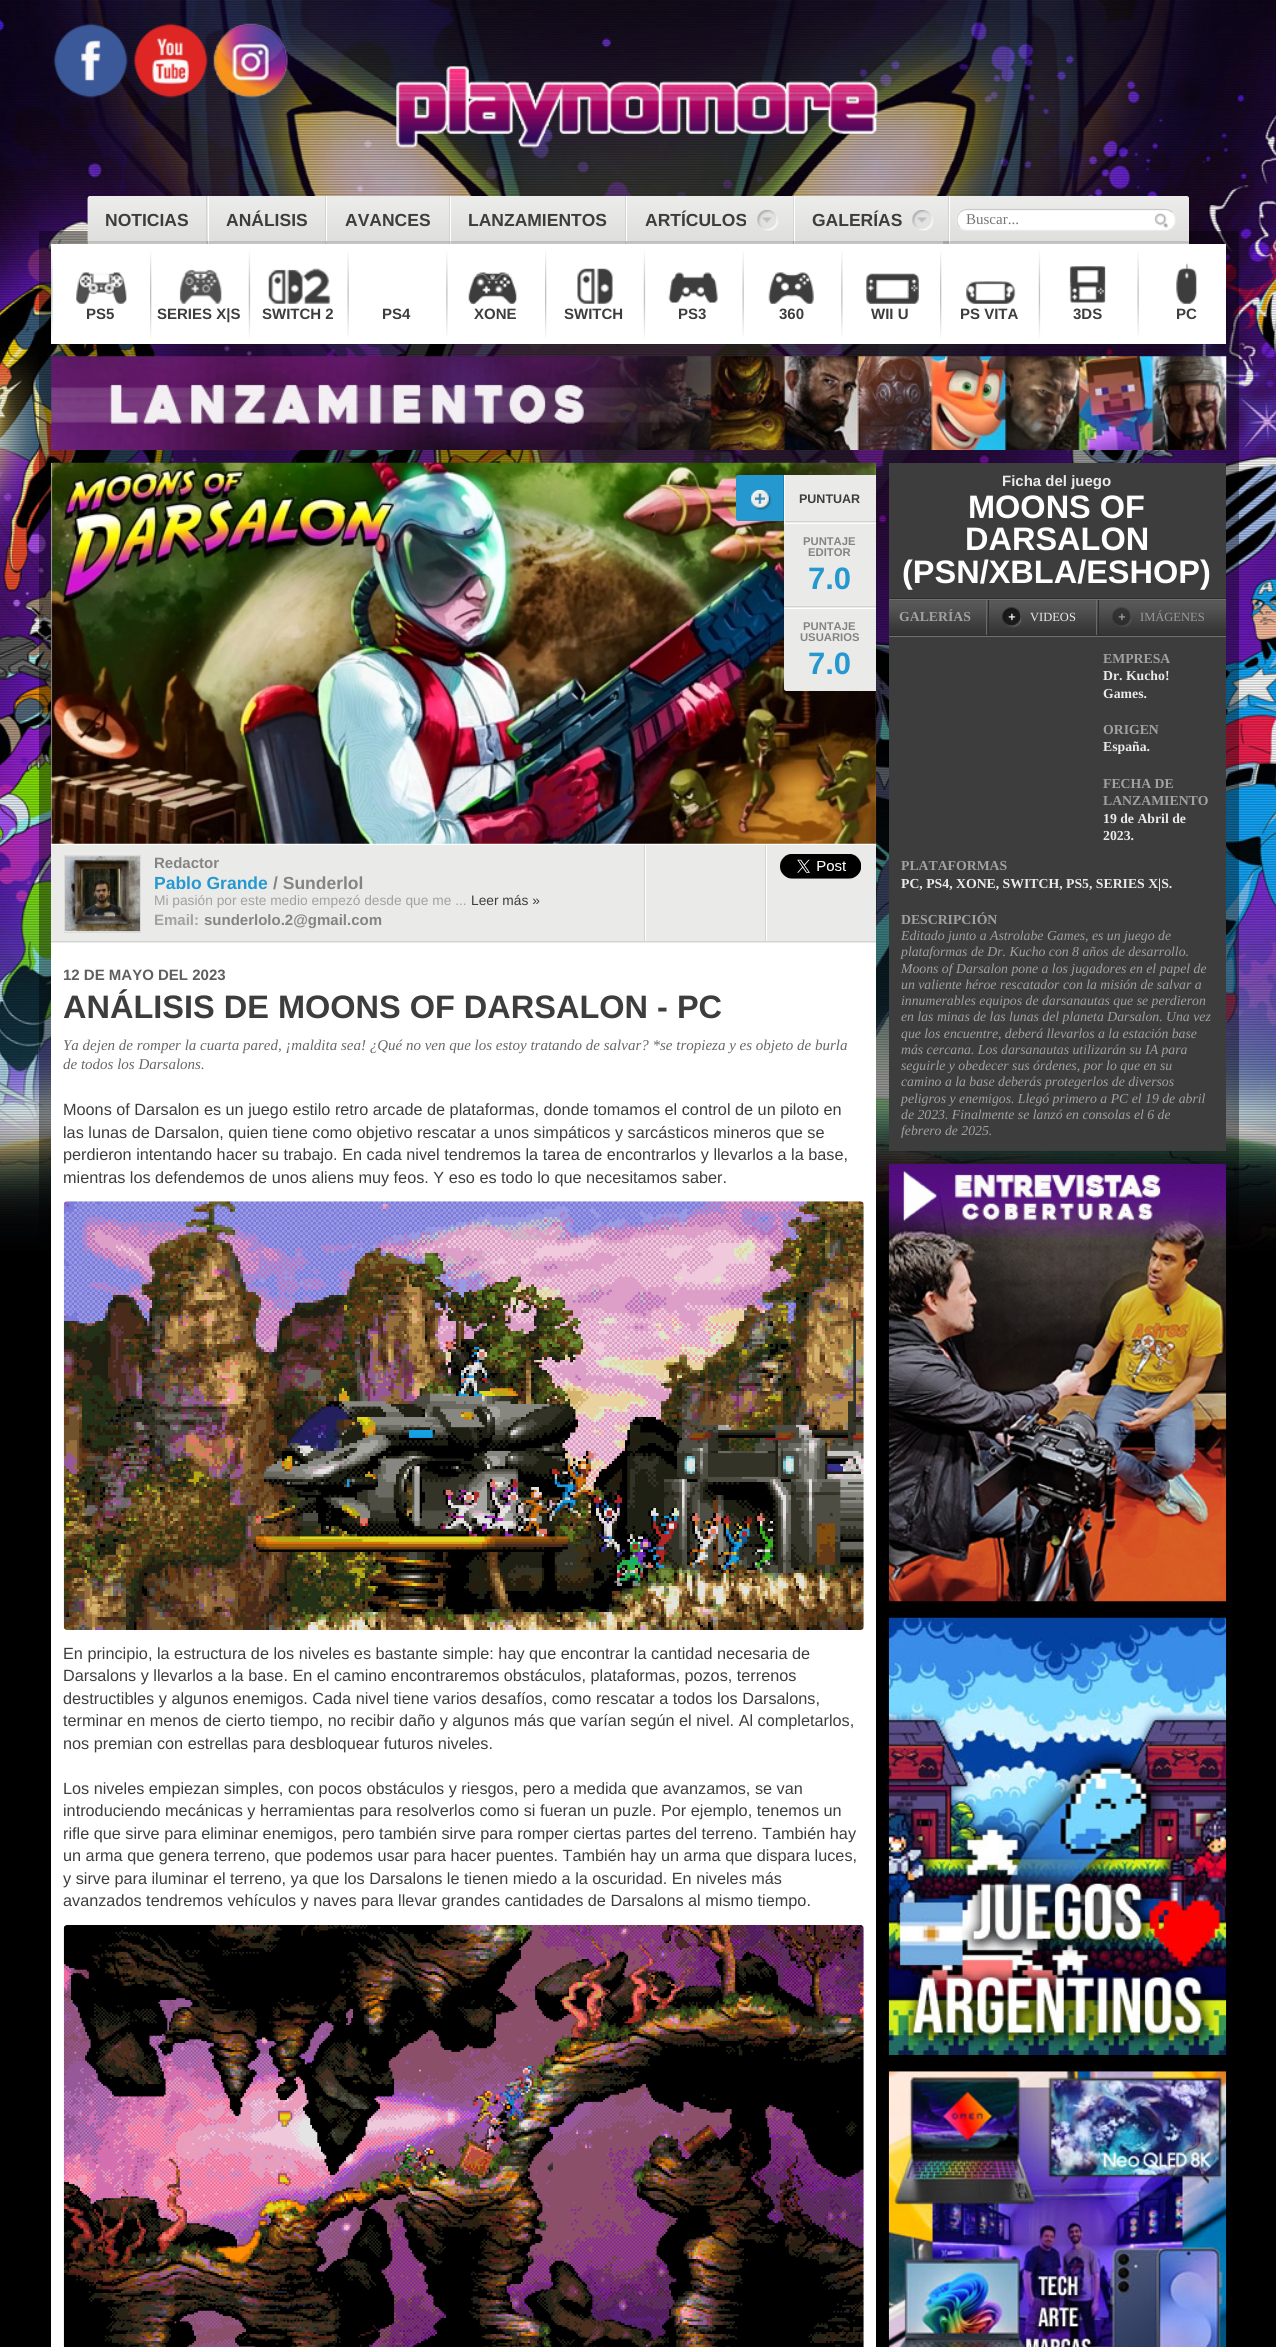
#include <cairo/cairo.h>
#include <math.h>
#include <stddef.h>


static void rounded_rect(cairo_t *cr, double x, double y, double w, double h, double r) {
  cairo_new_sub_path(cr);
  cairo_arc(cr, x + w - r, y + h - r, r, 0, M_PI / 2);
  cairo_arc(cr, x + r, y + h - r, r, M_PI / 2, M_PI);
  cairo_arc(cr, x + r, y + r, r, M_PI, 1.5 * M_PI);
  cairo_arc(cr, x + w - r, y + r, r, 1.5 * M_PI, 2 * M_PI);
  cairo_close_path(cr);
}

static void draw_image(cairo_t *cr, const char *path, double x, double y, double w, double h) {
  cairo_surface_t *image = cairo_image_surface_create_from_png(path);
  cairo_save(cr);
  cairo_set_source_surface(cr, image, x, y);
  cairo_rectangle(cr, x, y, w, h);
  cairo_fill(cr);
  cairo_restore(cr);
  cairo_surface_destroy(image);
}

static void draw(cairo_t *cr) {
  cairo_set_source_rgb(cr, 0, 0, 0);
  cairo_paint(cr);
  draw_image(cr, "images/1.png", 0, 0, 1276, 1250);
  draw_image(cr, "images/2.png", 0, 1, 1276, 1224);
  draw_image(cr, "images/3.png", 53, 23, 75, 75);
  draw_image(cr, "images/4.png", 133, 23, 75, 75);
  draw_image(cr, "images/5.png", 213, 23, 75, 75);
  draw_image(cr, "images/6.png", 396, 66, 482, 82);
  cairo_set_source_rgba(cr, 0, 0, 0, 0.4);
  cairo_rectangle(cr, 39, 231, 1200, 1013);
  cairo_fill(cr);
  cairo_set_source_rgb(cr, 235 / 255.0, 235 / 255.0, 234 / 255.0);
  cairo_new_path(cr);
  cairo_move_to(cr, 90.5, 196);
  cairo_line_to(cr, 1186.5, 196);
  cairo_curve_to(cr, 1188, 196, 1189, 197, 1189, 198.5);
  cairo_line_to(cr, 1189, 244);
  cairo_line_to(cr, 88, 244);
  cairo_line_to(cr, 88, 198.5);
  cairo_curve_to(cr, 88, 197, 89, 196, 90.5, 196);
  cairo_close_path(cr);
  cairo_fill(cr);
  draw_image(cr, "images/7.png", 87, 196, 1102, 48);
  draw_image(cr, "images/8.png", 87, 196, 3, 48);
  cairo_set_source_rgb(cr, 211 / 255.0, 211 / 255.0, 211 / 255.0);
  cairo_rectangle(cr, 206, 196, 1, 48);
  cairo_fill(cr);
  cairo_set_source_rgba(cr, 0, 0, 0, 0.14);
  cairo_rectangle(cr, 87, 241, 121, 3);
  cairo_fill(cr);
  cairo_set_source_rgb(cr, 211 / 255.0, 211 / 255.0, 211 / 255.0);
  cairo_rectangle(cr, 325, 196, 1, 48);
  cairo_fill(cr);
  cairo_set_source_rgb(cr, 1, 1, 1);
  cairo_rectangle(cr, 208, 196, 1, 48);
  cairo_fill(cr);
  cairo_rectangle(cr, 326, 196, 1, 48);
  cairo_fill(cr);
  cairo_set_source_rgba(cr, 0, 0, 0, 0.14);
  cairo_rectangle(cr, 207, 241, 120, 3);
  cairo_fill(cr);
  cairo_set_source_rgb(cr, 211 / 255.0, 211 / 255.0, 211 / 255.0);
  cairo_rectangle(cr, 449, 196, 1, 48);
  cairo_fill(cr);
  cairo_set_source_rgba(cr, 0, 0, 0, 0.14);
  cairo_rectangle(cr, 326, 241, 124, 3);
  cairo_fill(cr);
  cairo_set_source_rgb(cr, 211 / 255.0, 211 / 255.0, 211 / 255.0);
  cairo_rectangle(cr, 625, 196, 1, 48);
  cairo_fill(cr);
  cairo_set_source_rgb(cr, 1, 1, 1);
  cairo_rectangle(cr, 450, 196, 1, 48);
  cairo_fill(cr);
  cairo_rectangle(cr, 626, 196, 1, 48);
  cairo_fill(cr);
  cairo_set_source_rgba(cr, 0, 0, 0, 0.14);
  cairo_rectangle(cr, 450, 241, 177, 3);
  cairo_fill(cr);
  cairo_set_source_rgb(cr, 211 / 255.0, 211 / 255.0, 211 / 255.0);
  cairo_rectangle(cr, 793, 196, 1, 48);
  cairo_fill(cr);
  draw_image(cr, "images/9.png", 757, 210, 22, 21);
  cairo_set_source_rgba(cr, 0, 0, 0, 0.14);
  cairo_rectangle(cr, 626, 241, 168, 3);
  cairo_fill(cr);
  cairo_set_source_rgb(cr, 1, 1, 1);
  cairo_rectangle(cr, 949, 196, 1, 48);
  cairo_fill(cr);
  draw_image(cr, "images/10.png", 793, 196, 1, 34);
  cairo_set_source_rgb(cr, 211 / 255.0, 211 / 255.0, 211 / 255.0);
  cairo_rectangle(cr, 948, 196, 1, 48);
  cairo_fill(cr);
  cairo_set_source_rgb(cr, 1, 1, 1);
  cairo_rectangle(cr, 794, 196, 1, 48);
  cairo_fill(cr);
  draw_image(cr, "images/9.png", 912, 210, 22, 21);
  cairo_set_source_rgba(cr, 0, 0, 0, 0.14);
  cairo_rectangle(cr, 793, 241, 156, 3);
  cairo_fill(cr);
  cairo_set_source_rgb(cr, 1, 1, 1);
  rounded_rect(cr, 956, 209, 220, 22, 11);
  cairo_fill(cr);
  cairo_new_path(cr);
  cairo_move_to(cr, 960, 212.5);
  cairo_curve_to(cr, 962, 210.5, 964.5, 209.5, 967.5, 209.5);
  cairo_line_to(cr, 1165, 209.5);
  cairo_curve_to(cr, 1168, 209.5, 1170.5, 210.5, 1172.5, 212.5);
  cairo_set_source_rgb(cr, 202 / 255.0, 202 / 255.0, 201 / 255.0);
  cairo_set_line_width(cr, 1.2);
  cairo_stroke(cr);
  cairo_new_path(cr);
  cairo_move_to(cr, 1172.5, 212.5);
  cairo_curve_to(cr, 1176.5, 216.5, 1176.5, 223.5, 1172.5, 227.5);
  cairo_set_source_rgb(cr, 233 / 255.0, 233 / 255.0, 232 / 255.0);
  cairo_stroke(cr);
  cairo_new_path(cr);
  cairo_move_to(cr, 1172.5, 227.5);
  cairo_curve_to(cr, 1170.5, 229.5, 1168, 230.5, 1165, 230.5);
  cairo_line_to(cr, 967.5, 230.5);
  cairo_curve_to(cr, 964.5, 230.5, 962, 229.5, 960, 227.5);
  cairo_set_source_rgb(cr, 234 / 255.0, 234 / 255.0, 234 / 255.0);
  cairo_stroke(cr);
  cairo_new_path(cr);
  cairo_move_to(cr, 960, 227.5);
  cairo_curve_to(cr, 956, 223.5, 956, 216.5, 960, 212.5);
  cairo_set_source_rgb(cr, 210 / 255.0, 210 / 255.0, 209 / 255.0);
  cairo_stroke(cr);
  draw_image(cr, "images/11.png", 1154, 213, 14, 15);
  cairo_set_source_rgba(cr, 0, 0, 0, 0.14);
  cairo_rectangle(cr, 943, 241, 246, 3);
  cairo_fill(cr);
  cairo_set_source_rgb(cr, 1, 1, 1);
  cairo_rectangle(cr, 51, 244, 1175, 100);
  cairo_fill(cr);
  draw_image(cr, "images/12.png", 51, 252, 2, 85);
  draw_image(cr, "images/13.png", 76, 272, 51, 32);
  draw_image(cr, "images/14.png", 150, 251, 2, 87);
  draw_image(cr, "images/15.png", 179, 269, 43, 35);
  draw_image(cr, "images/16.png", 248, 251, 3, 87);
  draw_image(cr, "images/17.png", 268, 268, 63, 36);
  draw_image(cr, "images/18.png", 347, 252, 2, 85);
  draw_image(cr, "images/12.png", 446, 252, 2, 85);
  draw_image(cr, "images/19.png", 468, 272, 49, 32);
  draw_image(cr, "images/14.png", 545, 251, 2, 87);
  draw_image(cr, "images/20.png", 577, 268, 36, 36);
  draw_image(cr, "images/16.png", 643, 251, 3, 87);
  draw_image(cr, "images/21.png", 668, 272, 50, 31);
  draw_image(cr, "images/18.png", 742, 252, 2, 85);
  draw_image(cr, "images/22.png", 768, 272, 46, 32);
  draw_image(cr, "images/12.png", 841, 252, 2, 85);
  draw_image(cr, "images/23.png", 866, 273, 53, 31);
  draw_image(cr, "images/14.png", 940, 251, 2, 87);
  draw_image(cr, "images/24.png", 966, 281, 50, 23);
  draw_image(cr, "images/16.png", 1038, 251, 3, 87);
  draw_image(cr, "images/25.png", 1069, 266, 37, 37);
  draw_image(cr, "images/26.png", 1137, 252, 101, 85);
  draw_image(cr, "images/27.png", 1176, 263, 21, 41);
  draw_image(cr, "images/28.png", 51, 356, 1176, 94);
  cairo_rectangle(cr, 51, 463, 825, 1884);
  cairo_fill(cr);
  draw_image(cr, "images/29.png", 51, 462, 826, 382);
  cairo_set_source_rgb(cr, 234 / 255.0, 234 / 255.0, 233 / 255.0);
  cairo_new_path(cr);
  cairo_move_to(cr, 784, 475);
  cairo_line_to(cr, 876, 475);
  cairo_line_to(cr, 876, 691);
  cairo_line_to(cr, 786.5, 691);
  cairo_curve_to(cr, 785, 691, 784, 690, 784, 688.5);
  cairo_close_path(cr);
  cairo_fill(cr);
  cairo_set_source_rgb(cr, 211 / 255.0, 211 / 255.0, 211 / 255.0);
  cairo_rectangle(cr, 784, 521, 92, 1);
  cairo_fill(cr);
  cairo_set_source_rgb(cr, 1, 1, 1);
  cairo_rectangle(cr, 784, 475, 1, 48);
  cairo_fill(cr);
  cairo_set_source_rgb(cr, 37 / 255.0, 153 / 255.0, 207 / 255.0);
  cairo_new_path(cr);
  cairo_move_to(cr, 738.5, 475);
  cairo_line_to(cr, 784, 475);
  cairo_line_to(cr, 784, 521);
  cairo_line_to(cr, 738.5, 521);
  cairo_curve_to(cr, 737, 521, 736, 520, 736, 518.5);
  cairo_line_to(cr, 736, 477.5);
  cairo_curve_to(cr, 736, 476, 737, 475, 738.5, 475);
  cairo_close_path(cr);
  cairo_fill(cr);
  draw_image(cr, "images/30.png", 751, 490, 21, 20);
  cairo_set_source_rgb(cr, 22 / 255.0, 132 / 255.0, 183 / 255.0);
  cairo_rectangle(cr, 783, 475, 1, 46);
  cairo_fill(cr);
  cairo_set_source_rgb(cr, 1, 1, 1);
  cairo_rectangle(cr, 784, 523, 92, 1);
  cairo_fill(cr);
  cairo_set_source_rgb(cr, 211 / 255.0, 211 / 255.0, 211 / 255.0);
  cairo_rectangle(cr, 784, 606, 92, 1);
  cairo_fill(cr);
  cairo_set_source_rgb(cr, 1, 1, 1);
  cairo_rectangle(cr, 784, 608, 92, 1);
  cairo_fill(cr);
  cairo_set_source_rgb(cr, 234 / 255.0, 234 / 255.0, 233 / 255.0);
  cairo_rectangle(cr, 51, 845, 825, 98);
  cairo_fill(cr);
  cairo_set_source_rgb(cr, 211 / 255.0, 211 / 255.0, 211 / 255.0);
  cairo_rectangle(cr, 51, 941, 825, 1);
  cairo_fill(cr);
  cairo_set_source_rgb(cr, 1, 1, 1);
  cairo_rectangle(cr, 64.5, 855.5, 76, 77);
  cairo_fill_preserve(cr);
  cairo_set_source_rgb(cr, 218 / 255.0, 218 / 255.0, 218 / 255.0);
  cairo_set_line_width(cr, 1);
  cairo_stroke(cr);
  draw_image(cr, "images/31.png", 65, 856, 75, 76);
  cairo_set_source_rgb(cr, 211 / 255.0, 211 / 255.0, 211 / 255.0);
  cairo_rectangle(cr, 644, 845, 1, 96);
  cairo_fill(cr);
  cairo_rectangle(cr, 765, 845, 1, 96);
  cairo_fill(cr);
  cairo_set_source_rgb(cr, 1, 1, 1);
  cairo_rectangle(cr, 645, 845, 1, 96);
  cairo_fill(cr);
  cairo_rectangle(cr, 766, 845, 1, 96);
  cairo_fill(cr);
  draw_image(cr, "images/32.png", 780, 854, 81, 25);
  draw_image(cr, "images/33.png", 63, 1201, 801, 429);
  draw_image(cr, "images/34.png", 63, 1925, 801, 422);
  cairo_set_source_rgb(cr, 61 / 255.0, 61 / 255.0, 61 / 255.0);
  cairo_rectangle(cr, 889, 463, 337, 688);
  cairo_fill(cr);
  cairo_set_source_rgb(cr, 46 / 255.0, 46 / 255.0, 46 / 255.0);
  cairo_rectangle(cr, 889, 598, 337, 1);
  cairo_fill(cr);
  draw_image(cr, "images/35.png", 888, 599, 339, 37);
  cairo_set_source_rgb(cr, 113 / 255.0, 113 / 255.0, 113 / 255.0);
  cairo_rectangle(cr, 889, 599, 337, 1);
  cairo_fill(cr);
  cairo_set_source_rgb(cr, 46 / 255.0, 46 / 255.0, 46 / 255.0);
  cairo_rectangle(cr, 889, 635, 337, 1);
  cairo_fill(cr);
  cairo_set_source_rgb(cr, 105 / 255.0, 105 / 255.0, 105 / 255.0);
  cairo_rectangle(cr, 986, 600, 1, 35);
  cairo_fill(cr);
  cairo_rectangle(cr, 1096, 600, 1, 35);
  cairo_fill(cr);
  cairo_set_source_rgb(cr, 46 / 255.0, 46 / 255.0, 46 / 255.0);
  cairo_rectangle(cr, 988, 600, 1, 35);
  cairo_fill(cr);
  draw_image(cr, "images/36.png", 1002, 607, 20, 21);
  cairo_rectangle(cr, 1098, 600, 1, 35);
  cairo_fill(cr);
  draw_image(cr, "images/37.png", 1112, 607, 20, 20);
  cairo_set_source_rgb(cr, 113 / 255.0, 113 / 255.0, 113 / 255.0);
  cairo_rectangle(cr, 889, 636, 337, 1);
  cairo_fill(cr);
  draw_image(cr, "images/38.png", 888, 1163, 339, 439);
  draw_image(cr, "images/39.png", 888, 1617, 339, 438);
  draw_image(cr, "images/40.png", 888, 2071, 339, 276);
  cairo_select_font_face(cr, "Liberation Sans", CAIRO_FONT_SLANT_NORMAL, CAIRO_FONT_WEIGHT_BOLD);
  cairo_set_font_size(cr, 17.5);
  cairo_set_source_rgb(cr, 61 / 255.0, 61 / 255.0, 61 / 255.0);
  cairo_move_to(cr, 105, 226);
  cairo_show_text(cr, "NOTICIAS");
  cairo_move_to(cr, 226, 226);
  cairo_show_text(cr, "ANÁLISIS");
  cairo_move_to(cr, 345, 226);
  cairo_show_text(cr, "AVANCES");
  cairo_move_to(cr, 468, 226);
  cairo_show_text(cr, "LANZAMIENTOS");
  cairo_move_to(cr, 645, 226);
  cairo_show_text(cr, "ARTÍCULOS");
  cairo_move_to(cr, 812, 226);
  cairo_show_text(cr, "GALERÍAS");
  cairo_select_font_face(cr, "Liberation Serif", CAIRO_FONT_SLANT_NORMAL, CAIRO_FONT_WEIGHT_NORMAL);
  cairo_set_font_size(cr, 15);
  cairo_set_source_rgb(cr, 117 / 255.0, 117 / 255.0, 117 / 255.0);
  cairo_move_to(cr, 966, 224);
  cairo_show_text(cr, "Buscar...");
  cairo_select_font_face(cr, "Liberation Sans", CAIRO_FONT_SLANT_NORMAL, CAIRO_FONT_WEIGHT_BOLD);
  cairo_set_source_rgb(cr, 61 / 255.0, 61 / 255.0, 61 / 255.0);
  cairo_move_to(cr, 86, 319);
  cairo_show_text(cr, "PS5");
  cairo_move_to(cr, 157, 319);
  cairo_show_text(cr, "SERIES X|S");
  cairo_move_to(cr, 262, 319);
  cairo_show_text(cr, "SWITCH 2");
  cairo_move_to(cr, 382, 319);
  cairo_show_text(cr, "PS4");
  cairo_move_to(cr, 474, 319);
  cairo_show_text(cr, "XONE");
  cairo_move_to(cr, 564, 319);
  cairo_show_text(cr, "SWITCH");
  cairo_move_to(cr, 678, 319);
  cairo_show_text(cr, "PS3");
  cairo_move_to(cr, 779, 319);
  cairo_show_text(cr, "360");
  cairo_move_to(cr, 871, 319);
  cairo_show_text(cr, "WII U");
  cairo_move_to(cr, 960, 319);
  cairo_show_text(cr, "PS VITA");
  cairo_move_to(cr, 1073, 319);
  cairo_show_text(cr, "3DS");
  cairo_move_to(cr, 1176, 319);
  cairo_show_text(cr, "PC");
  cairo_set_font_size(cr, 12.5);
  cairo_move_to(cr, 799, 503);
  cairo_show_text(cr, "PUNTUAR");
  cairo_set_font_size(cr, 11.25);
  cairo_set_source_rgb(cr, 132 / 255.0, 132 / 255.0, 131 / 255.0);
  cairo_move_to(cr, 803, 545);
  cairo_show_text(cr, "PUNTAJE");
  cairo_move_to(cr, 808, 556);
  cairo_show_text(cr, "EDITOR");
  cairo_set_font_size(cr, 31);
  cairo_set_source_rgb(cr, 37 / 255.0, 153 / 255.0, 207 / 255.0);
  cairo_move_to(cr, 808, 589);
  cairo_show_text(cr, "7.0");
  cairo_set_font_size(cr, 11.25);
  cairo_set_source_rgb(cr, 132 / 255.0, 132 / 255.0, 131 / 255.0);
  cairo_move_to(cr, 803, 630);
  cairo_show_text(cr, "PUNTAJE");
  cairo_move_to(cr, 800, 641);
  cairo_show_text(cr, "USUARIOS");
  cairo_set_font_size(cr, 31);
  cairo_set_source_rgb(cr, 37 / 255.0, 153 / 255.0, 207 / 255.0);
  cairo_move_to(cr, 808, 674);
  cairo_show_text(cr, "7.0");
  cairo_set_font_size(cr, 15);
  cairo_set_source_rgb(cr, 132 / 255.0, 132 / 255.0, 131 / 255.0);
  cairo_move_to(cr, 154, 868);
  cairo_show_text(cr, "Redactor");
  cairo_set_font_size(cr, 17.5);
  cairo_set_source_rgb(cr, 37 / 255.0, 153 / 255.0, 207 / 255.0);
  cairo_move_to(cr, 154, 889);
  cairo_show_text(cr, "Pablo Grande");
  cairo_set_source_rgb(cr, 132 / 255.0, 132 / 255.0, 131 / 255.0);
  cairo_move_to(cr, 273, 889);
  cairo_show_text(cr, "/ Sunderlol");
  cairo_select_font_face(cr, "Liberation Sans", CAIRO_FONT_SLANT_NORMAL, CAIRO_FONT_WEIGHT_NORMAL);
  cairo_set_font_size(cr, 13.75);
  cairo_set_source_rgb(cr, 161 / 255.0, 161 / 255.0, 161 / 255.0);
  cairo_move_to(cr, 154, 905);
  cairo_show_text(cr, "Mi pasión por este medio empezó desde que me ...");
  cairo_set_source_rgb(cr, 61 / 255.0, 61 / 255.0, 61 / 255.0);
  cairo_move_to(cr, 471, 905);
  cairo_show_text(cr, "Leer más »");
  cairo_select_font_face(cr, "Liberation Sans", CAIRO_FONT_SLANT_NORMAL, CAIRO_FONT_WEIGHT_BOLD);
  cairo_set_font_size(cr, 15);
  cairo_set_source_rgb(cr, 161 / 255.0, 161 / 255.0, 161 / 255.0);
  cairo_move_to(cr, 154, 925);
  cairo_show_text(cr, "Email:");
  cairo_set_source_rgb(cr, 132 / 255.0, 132 / 255.0, 131 / 255.0);
  cairo_move_to(cr, 204, 925);
  cairo_show_text(cr, "sunderlolo.2@gmail.com");
  cairo_set_source_rgb(cr, 95 / 255.0, 95 / 255.0, 95 / 255.0);
  cairo_move_to(cr, 63, 980);
  cairo_show_text(cr, "12 DE MAYO DEL 2023");
  cairo_set_font_size(cr, 32.5);
  cairo_set_source_rgb(cr, 61 / 255.0, 61 / 255.0, 61 / 255.0);
  cairo_move_to(cr, 63, 1018);
  cairo_show_text(cr, "ANÁLISIS DE MOONS OF DARSALON - PC");
  cairo_select_font_face(cr, "Liberation Serif", CAIRO_FONT_SLANT_ITALIC, CAIRO_FONT_WEIGHT_NORMAL);
  cairo_set_font_size(cr, 15);
  cairo_set_source_rgb(cr, 106 / 255.0, 102 / 255.0, 102 / 255.0);
  cairo_move_to(cr, 63, 1050);
  cairo_show_text(cr, "Ya dejen de romper la cuarta pared, ¡maldita sea! ¿Qué no ven que los estoy tratando de salvar? *se tropieza y es objeto de burla");
  cairo_move_to(cr, 63, 1069);
  cairo_show_text(cr, "de todos los Darsalons.");
  cairo_select_font_face(cr, "Liberation Sans", CAIRO_FONT_SLANT_NORMAL, CAIRO_FONT_WEIGHT_NORMAL);
  cairo_set_font_size(cr, 16.25);
  cairo_set_source_rgb(cr, 61 / 255.0, 61 / 255.0, 61 / 255.0);
  cairo_move_to(cr, 63, 1115);
  cairo_show_text(cr, "Moons of Darsalon es un juego estilo retro arcade de plataformas, donde tomamos el control de un piloto en");
  cairo_move_to(cr, 63, 1138);
  cairo_show_text(cr, "las lunas de Darsalon, quien tiene como objetivo rescatar a unos simpáticos y sarcásticos mineros que se");
  cairo_move_to(cr, 63, 1160);
  cairo_show_text(cr, "perdieron intentando hacer su trabajo. En cada nivel tendremos la tarea de encontrarlos y llevarlos a la base,");
  cairo_move_to(cr, 63, 1183);
  cairo_show_text(cr, "mientras los defendemos de unos aliens muy feos. Y eso es todo lo que necesitamos saber.");
  cairo_move_to(cr, 63, 1659);
  cairo_show_text(cr, "En principio, la estructura de los niveles es bastante simple: hay que encontrar la cantidad necesaria de");
  cairo_move_to(cr, 63, 1681);
  cairo_show_text(cr, "Darsalons y llevarlos a la base. En el camino encontraremos obstáculos, plataformas, pozos, terrenos");
  cairo_move_to(cr, 63, 1704);
  cairo_show_text(cr, "destructibles y algunos enemigos. Cada nivel tiene varios desafíos, como rescatar a todos los Darsalons,");
  cairo_move_to(cr, 63, 1726);
  cairo_show_text(cr, "terminar en menos de cierto tiempo, no recibir daño y algunos más que varían según el nivel. Al completarlos,");
  cairo_move_to(cr, 63, 1749);
  cairo_show_text(cr, "nos premian con estrellas para desbloquear futuros niveles.");
  cairo_move_to(cr, 63, 1794);
  cairo_show_text(cr, "Los niveles empiezan simples, con pocos obstáculos y riesgos, pero a medida que avanzamos, se van");
  cairo_move_to(cr, 63, 1816);
  cairo_show_text(cr, "introduciendo mecánicas y herramientas para resolverlos como si fueran un puzle. Por ejemplo, tenemos un");
  cairo_move_to(cr, 63, 1839);
  cairo_show_text(cr, "rifle que sirve para eliminar enemigos, pero también sirve para romper ciertas partes del terreno. También hay");
  cairo_move_to(cr, 63, 1861);
  cairo_show_text(cr, "un arma que genera terreno, que podemos usar para hacer puentes. También hay un arma que dispara luces,");
  cairo_move_to(cr, 63, 1884);
  cairo_show_text(cr, "y sirve para iluminar el terreno, ya que los Darsalons le tienen miedo a la oscuridad. En niveles más");
  cairo_move_to(cr, 63, 1906);
  cairo_show_text(cr, "avanzados tendremos vehículos y naves para llevar grandes cantidades de Darsalons al mismo tiempo.");
  cairo_select_font_face(cr, "Liberation Sans", CAIRO_FONT_SLANT_NORMAL, CAIRO_FONT_WEIGHT_BOLD);
  cairo_set_font_size(cr, 15);
  cairo_set_source_rgb(cr, 234 / 255.0, 234 / 255.0, 233 / 255.0);
  cairo_move_to(cr, 1002, 486);
  cairo_show_text(cr, "Ficha del juego");
  cairo_set_font_size(cr, 32.5);
  cairo_set_source_rgb(cr, 1, 1, 1);
  cairo_move_to(cr, 968, 518);
  cairo_show_text(cr, "MOONS OF");
  cairo_move_to(cr, 965, 550);
  cairo_show_text(cr, "DARSALON");
  cairo_move_to(cr, 902, 583);
  cairo_show_text(cr, "(PSN/XBLA/ESHOP)");
  cairo_select_font_face(cr, "Liberation Serif", CAIRO_FONT_SLANT_NORMAL, CAIRO_FONT_WEIGHT_BOLD);
  cairo_set_font_size(cr, 13.75);
  cairo_set_source_rgb(cr, 161 / 255.0, 161 / 255.0, 161 / 255.0);
  cairo_move_to(cr, 899, 621);
  cairo_show_text(cr, "GALERÍAS");
  cairo_select_font_face(cr, "Liberation Serif", CAIRO_FONT_SLANT_NORMAL, CAIRO_FONT_WEIGHT_NORMAL);
  cairo_set_font_size(cr, 12.5);
  cairo_set_source_rgb(cr, 234 / 255.0, 234 / 255.0, 233 / 255.0);
  cairo_move_to(cr, 1030, 621);
  cairo_show_text(cr, "VIDEOS");
  cairo_set_source_rgb(cr, 153 / 255.0, 153 / 255.0, 153 / 255.0);
  cairo_move_to(cr, 1140, 621);
  cairo_show_text(cr, "IMÁGENES");
  cairo_select_font_face(cr, "Liberation Serif", CAIRO_FONT_SLANT_NORMAL, CAIRO_FONT_WEIGHT_BOLD);
  cairo_set_font_size(cr, 13.75);
  cairo_set_source_rgb(cr, 161 / 255.0, 161 / 255.0, 161 / 255.0);
  cairo_move_to(cr, 1103, 663);
  cairo_show_text(cr, "EMPRESA");
  cairo_set_source_rgb(cr, 234 / 255.0, 234 / 255.0, 233 / 255.0);
  cairo_move_to(cr, 1103, 680);
  cairo_show_text(cr, "Dr. Kucho!");
  cairo_move_to(cr, 1103, 698);
  cairo_show_text(cr, "Games.");
  cairo_set_source_rgb(cr, 161 / 255.0, 161 / 255.0, 161 / 255.0);
  cairo_move_to(cr, 1103, 734);
  cairo_show_text(cr, "ORIGEN");
  cairo_set_source_rgb(cr, 234 / 255.0, 234 / 255.0, 233 / 255.0);
  cairo_move_to(cr, 1103, 751);
  cairo_show_text(cr, "España.");
  cairo_set_source_rgb(cr, 161 / 255.0, 161 / 255.0, 161 / 255.0);
  cairo_move_to(cr, 1103, 788);
  cairo_show_text(cr, "FECHA DE");
  cairo_move_to(cr, 1103, 805);
  cairo_show_text(cr, "LANZAMIENTO");
  cairo_set_source_rgb(cr, 234 / 255.0, 234 / 255.0, 233 / 255.0);
  cairo_move_to(cr, 1103, 823);
  cairo_show_text(cr, "19 de Abril de");
  cairo_move_to(cr, 1103, 840);
  cairo_show_text(cr, "2023.");
  cairo_set_source_rgb(cr, 161 / 255.0, 161 / 255.0, 161 / 255.0);
  cairo_move_to(cr, 901, 870);
  cairo_show_text(cr, "PLATAFORMAS");
  cairo_set_source_rgb(cr, 234 / 255.0, 234 / 255.0, 233 / 255.0);
  cairo_move_to(cr, 901, 888);
  cairo_show_text(cr, "PC, PS4, XONE, SWITCH, PS5, SERIES X|S.");
  cairo_set_source_rgb(cr, 161 / 255.0, 161 / 255.0, 161 / 255.0);
  cairo_move_to(cr, 901, 924);
  cairo_show_text(cr, "DESCRIPCIÓN");
  cairo_select_font_face(cr, "Liberation Serif", CAIRO_FONT_SLANT_ITALIC, CAIRO_FONT_WEIGHT_NORMAL);
  cairo_move_to(cr, 901, 940);
  cairo_show_text(cr, "Editado junto a Astrolabe Games, es un juego de");
  cairo_move_to(cr, 901, 956);
  cairo_show_text(cr, "plataformas de Dr. Kucho con 8 años de desarrollo.");
  cairo_move_to(cr, 901, 973);
  cairo_show_text(cr, "Moons of Darsalon pone a los jugadores en el papel de");
  cairo_move_to(cr, 901, 989);
  cairo_show_text(cr, "un valiente héroe rescatador con la misión de salvar a");
  cairo_move_to(cr, 901, 1005);
  cairo_show_text(cr, "innumerables equipos de darsanautas que se perdieron");
  cairo_move_to(cr, 901, 1021);
  cairo_show_text(cr, "en las minas de las lunas del planeta Darsalon. Una vez");
  cairo_move_to(cr, 901, 1038);
  cairo_show_text(cr, "que los encuentre, deberá llevarlos a la estación base");
  cairo_move_to(cr, 901, 1054);
  cairo_show_text(cr, "más cercana. Los darsanautas utilizarán su IA para");
  cairo_move_to(cr, 901, 1070);
  cairo_show_text(cr, "seguirle y obedecer sus órdenes, por lo que en su");
  cairo_move_to(cr, 901, 1086);
  cairo_show_text(cr, "camino a la base deberás protegerlos de diversos");
  cairo_move_to(cr, 901, 1103);
  cairo_show_text(cr, "peligros y enemigos. Llegó primero a PC el 19 de abril");
  cairo_move_to(cr, 901, 1119);
  cairo_show_text(cr, "de 2023. Finalmente se lanzó en consolas el 6 de");
  cairo_move_to(cr, 901, 1135);
  cairo_show_text(cr, "febrero de 2025.");
}

int main(void) {
  cairo_surface_t *surface = cairo_image_surface_create(CAIRO_FORMAT_RGB24, 1276, 2347);
  cairo_t *cr = cairo_create(surface);
  cairo_font_options_t *options = cairo_font_options_create();
  cairo_font_options_set_hint_metrics(options, CAIRO_HINT_METRICS_OFF);
  cairo_font_options_set_hint_style(options, CAIRO_HINT_STYLE_NONE);
  cairo_set_font_options(cr, options);
  cairo_set_miter_limit(cr, 4);
  draw(cr);
  cairo_surface_write_to_png(surface, "out.png");
  cairo_font_options_destroy(options);
  cairo_destroy(cr);
  cairo_surface_destroy(surface);
  return 0;
}
